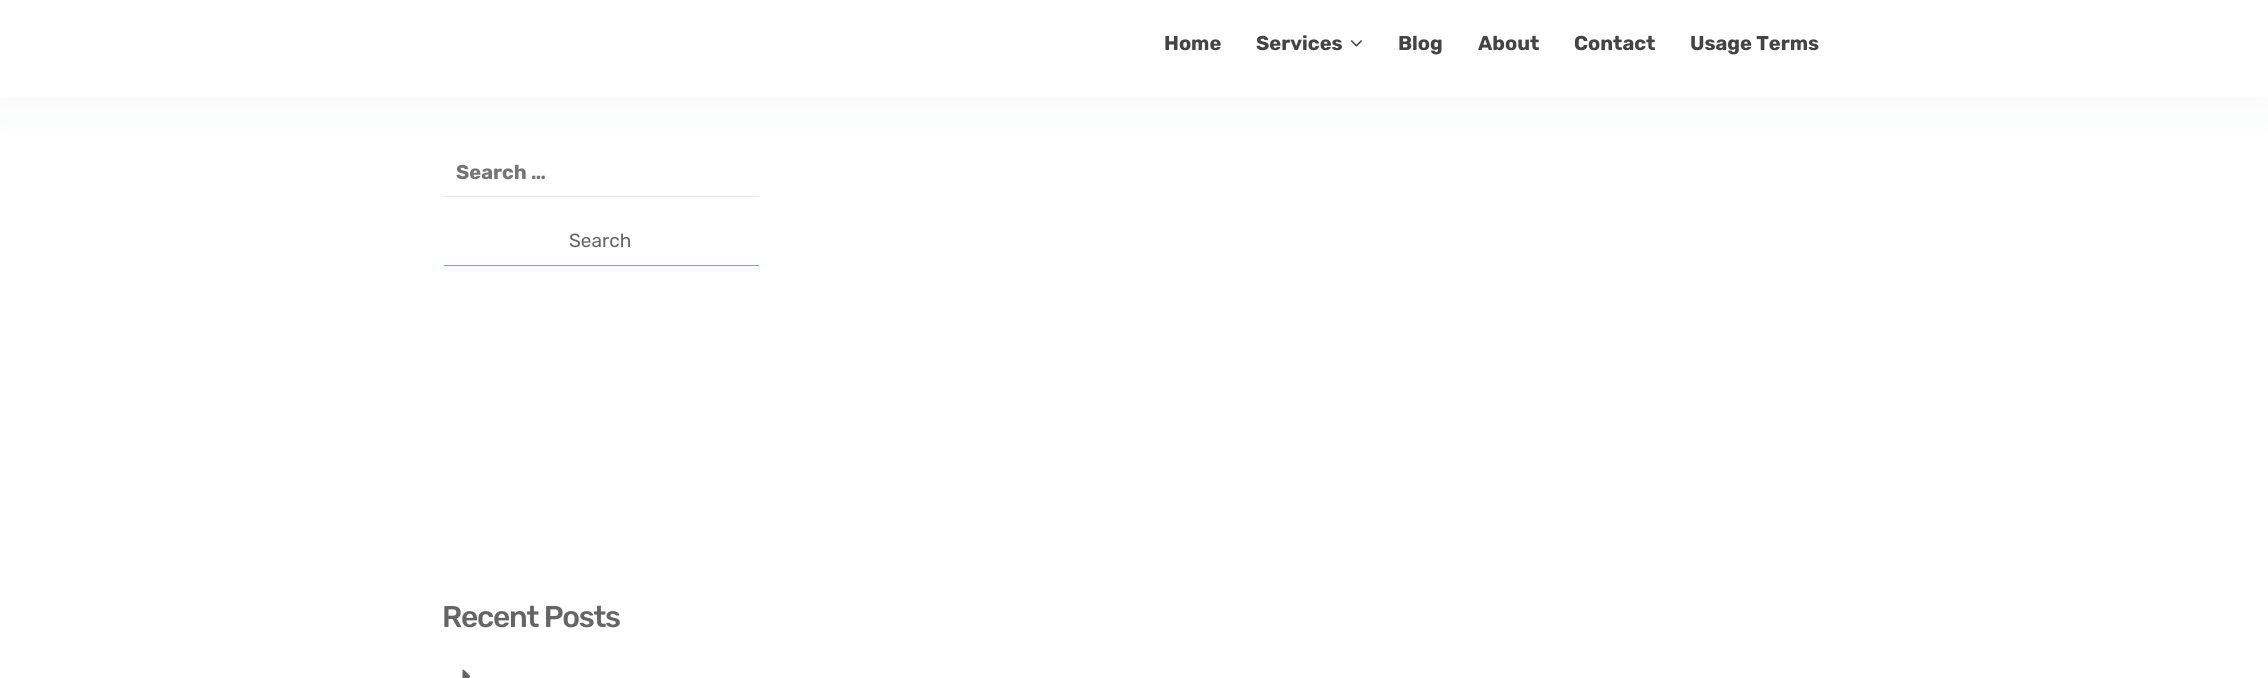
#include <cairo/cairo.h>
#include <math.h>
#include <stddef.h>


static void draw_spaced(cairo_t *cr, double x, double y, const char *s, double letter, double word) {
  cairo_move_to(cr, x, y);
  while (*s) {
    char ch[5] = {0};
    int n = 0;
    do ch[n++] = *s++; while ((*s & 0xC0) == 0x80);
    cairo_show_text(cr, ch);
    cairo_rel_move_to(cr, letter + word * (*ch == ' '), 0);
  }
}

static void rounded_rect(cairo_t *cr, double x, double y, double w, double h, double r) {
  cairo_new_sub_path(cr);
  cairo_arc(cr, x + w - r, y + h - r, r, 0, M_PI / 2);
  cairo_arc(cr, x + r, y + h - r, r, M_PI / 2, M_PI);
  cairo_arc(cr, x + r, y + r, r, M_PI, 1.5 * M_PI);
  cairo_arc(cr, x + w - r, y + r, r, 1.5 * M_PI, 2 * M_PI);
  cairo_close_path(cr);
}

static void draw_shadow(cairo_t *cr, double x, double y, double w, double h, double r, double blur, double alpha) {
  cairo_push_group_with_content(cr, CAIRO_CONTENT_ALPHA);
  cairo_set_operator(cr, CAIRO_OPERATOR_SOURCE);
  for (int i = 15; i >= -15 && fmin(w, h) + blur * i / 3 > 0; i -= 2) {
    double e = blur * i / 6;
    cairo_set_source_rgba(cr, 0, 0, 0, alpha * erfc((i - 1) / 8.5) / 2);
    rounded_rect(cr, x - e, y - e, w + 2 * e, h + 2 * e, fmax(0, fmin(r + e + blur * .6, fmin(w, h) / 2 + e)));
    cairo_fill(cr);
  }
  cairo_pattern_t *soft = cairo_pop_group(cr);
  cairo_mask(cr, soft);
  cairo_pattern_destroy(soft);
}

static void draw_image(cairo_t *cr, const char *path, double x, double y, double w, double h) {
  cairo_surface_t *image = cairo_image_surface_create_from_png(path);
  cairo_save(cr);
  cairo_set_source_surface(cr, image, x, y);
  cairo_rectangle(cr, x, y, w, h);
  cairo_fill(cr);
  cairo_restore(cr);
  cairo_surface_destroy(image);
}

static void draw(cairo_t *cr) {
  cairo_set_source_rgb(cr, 1, 1, 1);
  cairo_paint(cr);
  cairo_set_source_rgb(cr, 42 / 255.0, 49 / 255.0, 57 / 255.0);
  draw_shadow(cr, 0, 0, 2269, 98, 0, 25, 0.05);
  cairo_set_source_rgb(cr, 1, 1, 1);
  cairo_rectangle(cr, 0, 0, 2268, 98);
  cairo_fill(cr);
  draw_image(cr, "images/1.png", 1350, 40, 12, 7);
  cairo_set_source_rgb(cr, 227 / 255.0, 229 / 255.0, 230 / 255.0);
  cairo_rectangle(cr, 443, 196, 316, 1);
  cairo_fill(cr);
  cairo_set_source_rgb(cr, 1, 1, 1);
  cairo_rectangle(cr, 443, 196, 1, 2);
  cairo_fill(cr);
  cairo_set_source_rgb(cr, 67 / 255.0, 198 / 255.0, 172 / 255.0);
  cairo_rectangle(cr, 443, 265, 316, 1);
  cairo_fill(cr);
  cairo_set_source_rgb(cr, 1, 1, 1);
  cairo_rectangle(cr, 443, 265, 1, 1);
  cairo_fill(cr);
  draw_image(cr, "images/2.png", 462, 669, 9, 9);
  cairo_select_font_face(cr, "Rubik", CAIRO_FONT_SLANT_NORMAL, CAIRO_FONT_WEIGHT_BOLD);
  cairo_set_font_size(cr, 20);
  cairo_set_source_rgb(cr, 68 / 255.0, 68 / 255.0, 68 / 255.0);
  cairo_move_to(cr, 1164, 50);
  cairo_show_text(cr, "Home");
  cairo_move_to(cr, 1256, 50);
  cairo_show_text(cr, "Services");
  cairo_move_to(cr, 1398, 50);
  cairo_show_text(cr, "Blog");
  cairo_move_to(cr, 1478, 50);
  cairo_show_text(cr, "About");
  cairo_move_to(cr, 1574, 50);
  cairo_show_text(cr, "Contact");
  cairo_move_to(cr, 1690, 50);
  cairo_show_text(cr, "Usage Terms");
  cairo_set_source_rgb(cr, 117 / 255.0, 117 / 255.0, 117 / 255.0);
  cairo_move_to(cr, 456, 179);
  cairo_show_text(cr, "Search …");
  cairo_select_font_face(cr, "Rubik", CAIRO_FONT_SLANT_NORMAL, CAIRO_FONT_WEIGHT_NORMAL);
  cairo_set_font_size(cr, 19);
  cairo_set_source_rgb(cr, 101 / 255.0, 101 / 255.0, 101 / 255.0);
  cairo_move_to(cr, 569, 247);
  cairo_show_text(cr, "Search");
  cairo_select_font_face(cr, "Rubik Medium", CAIRO_FONT_SLANT_NORMAL, CAIRO_FONT_WEIGHT_NORMAL);
  cairo_set_font_size(cr, 30);
  draw_spaced(cr, 442, 627, "Recent Posts", -1.25, 0);
}

int main(void) {
  cairo_surface_t *surface = cairo_image_surface_create(CAIRO_FORMAT_RGB24, 2268, 678);
  cairo_t *cr = cairo_create(surface);
  cairo_font_options_t *options = cairo_font_options_create();
  cairo_font_options_set_hint_metrics(options, CAIRO_HINT_METRICS_OFF);
  cairo_font_options_set_hint_style(options, CAIRO_HINT_STYLE_NONE);
  cairo_set_font_options(cr, options);
  cairo_set_miter_limit(cr, 4);
  draw(cr);
  cairo_surface_write_to_png(surface, "out.png");
  cairo_font_options_destroy(options);
  cairo_destroy(cr);
  cairo_surface_destroy(surface);
  return 0;
}
